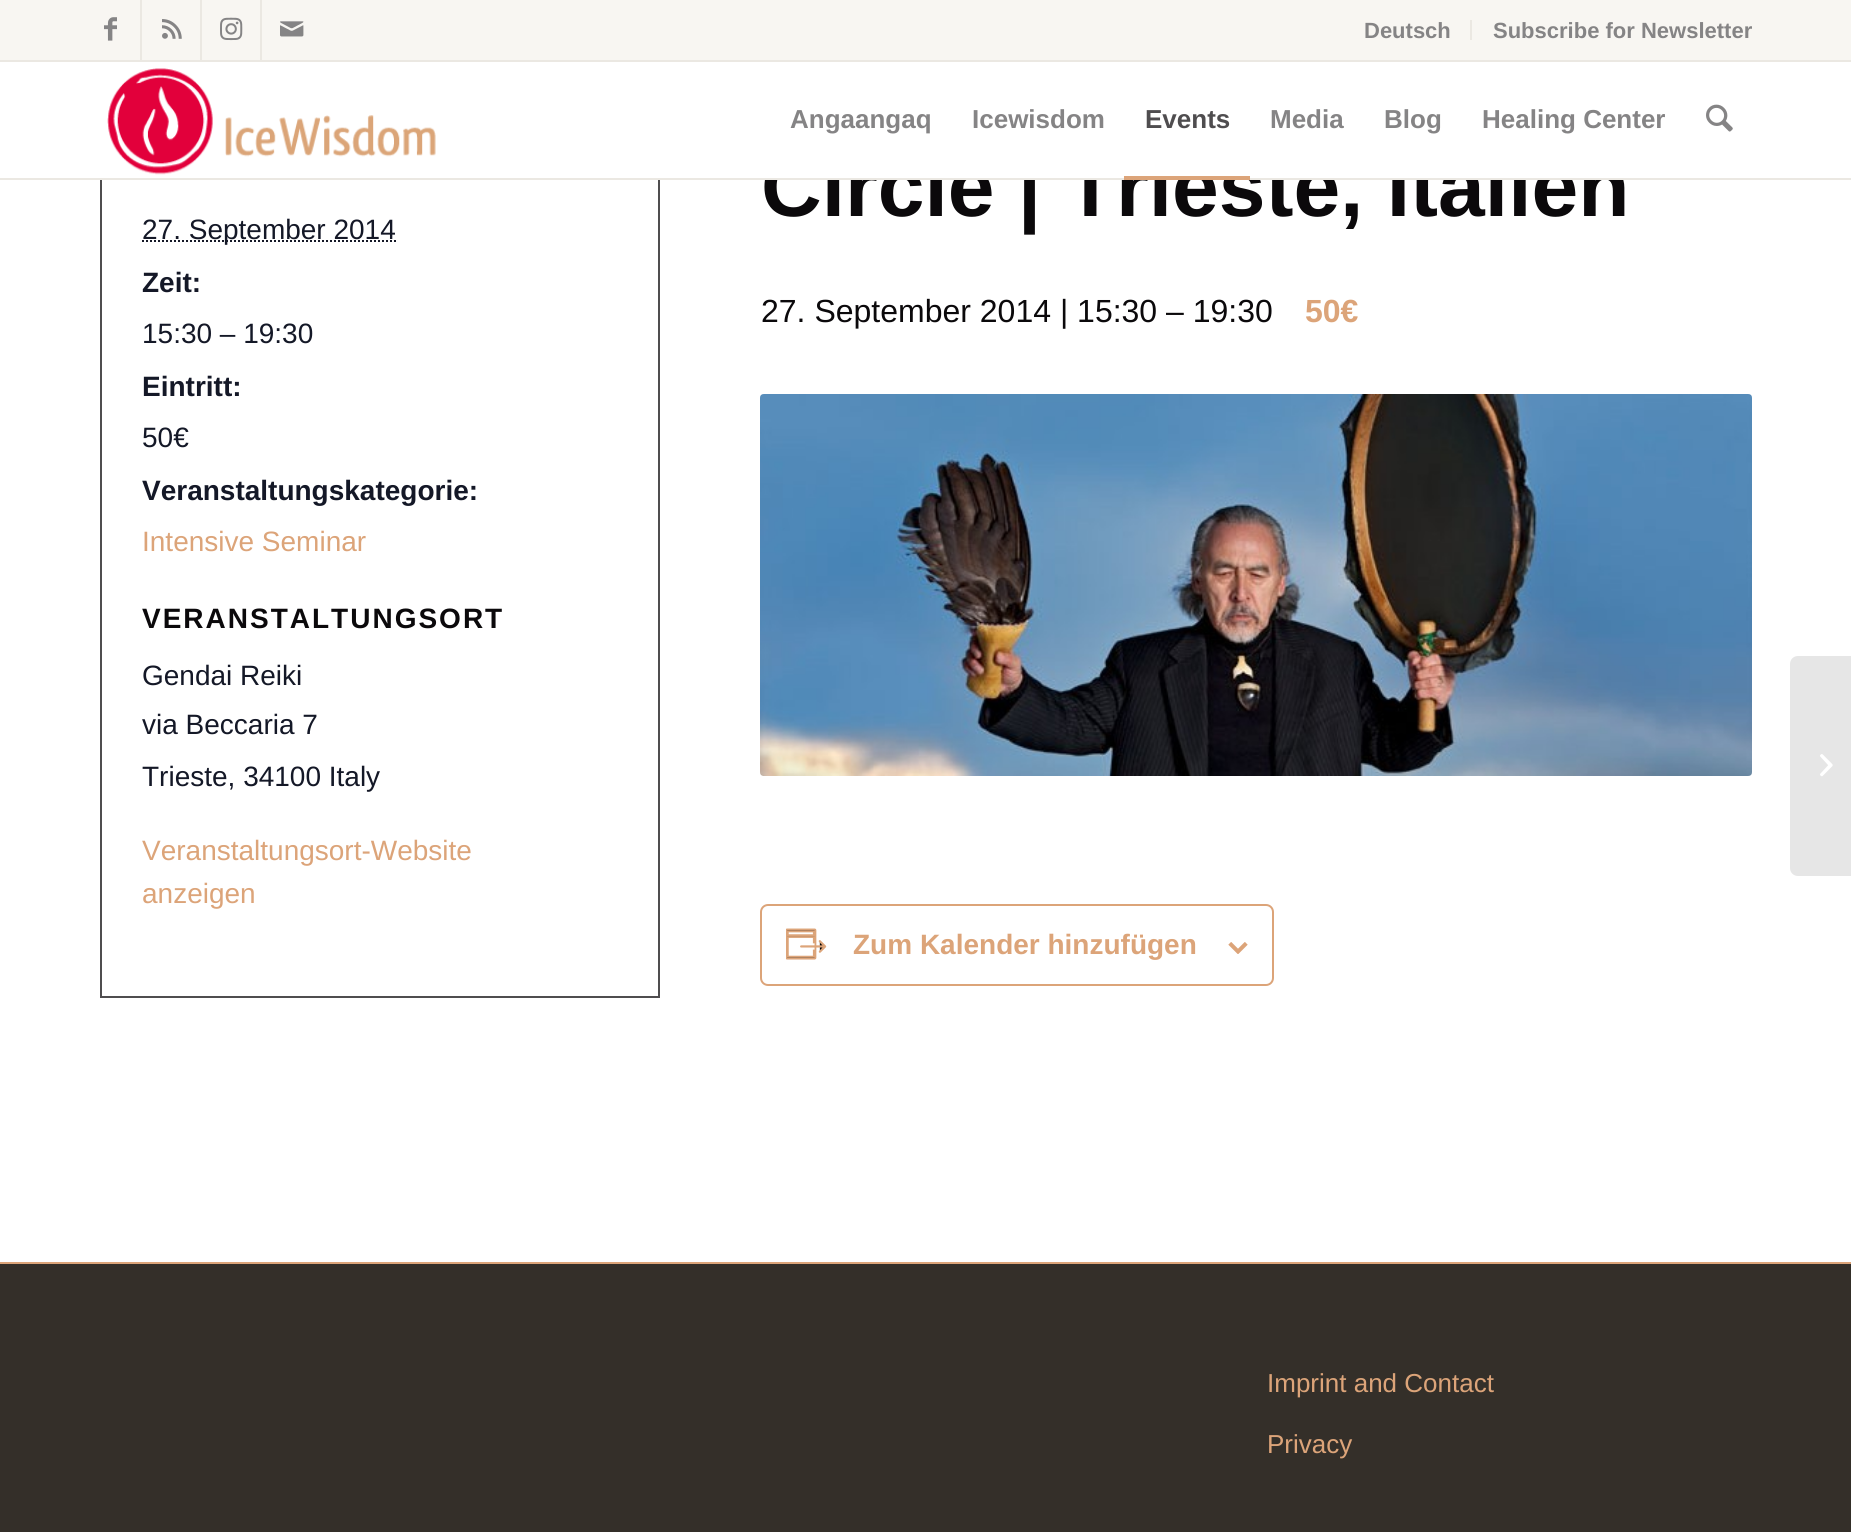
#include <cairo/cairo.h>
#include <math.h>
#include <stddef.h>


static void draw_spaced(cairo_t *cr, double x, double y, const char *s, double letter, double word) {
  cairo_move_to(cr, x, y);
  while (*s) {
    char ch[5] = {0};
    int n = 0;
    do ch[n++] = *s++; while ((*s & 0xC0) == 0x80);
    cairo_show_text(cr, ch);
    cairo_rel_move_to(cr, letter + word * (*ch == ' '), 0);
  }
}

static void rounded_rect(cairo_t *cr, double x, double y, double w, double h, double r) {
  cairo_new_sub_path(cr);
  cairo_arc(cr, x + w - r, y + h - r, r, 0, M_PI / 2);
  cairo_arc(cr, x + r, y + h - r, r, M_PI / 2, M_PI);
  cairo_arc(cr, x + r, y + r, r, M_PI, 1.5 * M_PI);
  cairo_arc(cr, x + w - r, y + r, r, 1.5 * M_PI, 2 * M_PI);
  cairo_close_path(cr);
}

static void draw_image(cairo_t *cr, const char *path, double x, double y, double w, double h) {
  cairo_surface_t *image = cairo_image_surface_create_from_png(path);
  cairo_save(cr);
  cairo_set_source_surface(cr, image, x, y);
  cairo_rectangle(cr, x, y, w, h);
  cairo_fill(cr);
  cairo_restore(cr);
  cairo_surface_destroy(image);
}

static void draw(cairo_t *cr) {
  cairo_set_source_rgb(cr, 1, 1, 1);
  cairo_paint(cr);
  cairo_rectangle(cr, 101, 15, 558, 982);
  cairo_set_source_rgb(cr, 79 / 255.0, 77 / 255.0, 79 / 255.0);
  cairo_stroke(cr);
  cairo_set_source_rgb(cr, 248 / 255.0, 246 / 255.0, 242 / 255.0);
  cairo_rectangle(cr, 0, 0, 1851, 60);
  cairo_fill(cr);
  cairo_set_source_rgb(cr, 235 / 255.0, 232 / 255.0, 226 / 255.0);
  cairo_rectangle(cr, 0, 60, 1851, 2);
  cairo_fill(cr);
  cairo_rectangle(cr, 140, 0, 2, 60);
  cairo_fill(cr);
  draw_image(cr, "images/1.png", 104, 17, 13, 24);
  cairo_rectangle(cr, 200, 0, 2, 60);
  cairo_fill(cr);
  draw_image(cr, "images/2.png", 162, 19, 20, 20);
  cairo_rectangle(cr, 260, 0, 2, 60);
  cairo_fill(cr);
  draw_image(cr, "images/3.png", 220, 17, 23, 24);
  draw_image(cr, "images/4.png", 280, 21, 24, 16);
  cairo_rectangle(cr, 1470, 20, 2, 20);
  cairo_fill(cr);
  draw_image(cr, "images/6.png", 1706, 104, 27, 28);
  cairo_new_path(cr);
  cairo_move_to(cr, 142, 241);
  cairo_line_to(cr, 396, 241);
  cairo_set_source_rgb(cr, 20 / 255.0, 24 / 255.0, 39 / 255.0);
  cairo_set_dash(cr, (double[]){2, 2}, 2, 0);
  cairo_stroke(cr);
  draw_image(cr, "images/7.png", 760, 394, 992, 382);
  rounded_rect(cr, 761, 905, 512, 80, 7);
  cairo_set_source_rgb(cr, 220 / 255.0, 164 / 255.0, 121 / 255.0);
  cairo_set_dash(cr, NULL, 0, 0);
  cairo_stroke(cr);
  draw_image(cr, "images/8.png", 786, 928, 41, 32);
  draw_image(cr, "images/9.png", 1228, 942, 20, 12);
  cairo_set_source_rgb(cr, 52 / 255.0, 47 / 255.0, 41 / 255.0);
  cairo_rectangle(cr, 0, 1264, 1851, 268);
  cairo_fill(cr);
  cairo_set_source_rgb(cr, 220 / 255.0, 164 / 255.0, 121 / 255.0);
  cairo_rectangle(cr, 0, 1262, 1851, 2);
  cairo_fill(cr);
  cairo_set_source_rgb(cr, 230 / 255.0, 230 / 255.0, 230 / 255.0);
  cairo_new_path(cr);
  cairo_move_to(cr, 1798, 656);
  cairo_line_to(cr, 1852, 656);
  cairo_line_to(cr, 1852, 876);
  cairo_line_to(cr, 1798, 876);
  cairo_curve_to(cr, 1793.5, 876, 1790, 872.5, 1790, 868);
  cairo_line_to(cr, 1790, 664);
  cairo_curve_to(cr, 1790, 659.5, 1793.5, 656, 1798, 656);
  cairo_close_path(cr);
  cairo_fill(cr);
  draw_image(cr, "images/10.png", 1820, 754, 13, 23);
  cairo_select_font_face(cr, "Liberation Sans", CAIRO_FONT_SLANT_NORMAL, CAIRO_FONT_WEIGHT_BOLD);
  cairo_set_font_size(cr, 22);
  cairo_set_source_rgb(cr, 133 / 255.0, 132 / 255.0, 133 / 255.0);
  cairo_move_to(cr, 1364, 38);
  cairo_show_text(cr, "Deutsch");
  cairo_move_to(cr, 1493, 38);
  cairo_show_text(cr, "Subscribe for Newsletter");
  cairo_select_font_face(cr, "Liberation Sans", CAIRO_FONT_SLANT_NORMAL, CAIRO_FONT_WEIGHT_NORMAL);
  cairo_set_font_size(cr, 28);
  cairo_set_source_rgb(cr, 20 / 255.0, 24 / 255.0, 39 / 255.0);
  cairo_move_to(cr, 142, 239);
  cairo_show_text(cr, "27. September 2014");
  cairo_select_font_face(cr, "Liberation Sans", CAIRO_FONT_SLANT_NORMAL, CAIRO_FONT_WEIGHT_BOLD);
  cairo_move_to(cr, 142, 292);
  cairo_show_text(cr, "Zeit:");
  cairo_select_font_face(cr, "Liberation Sans", CAIRO_FONT_SLANT_NORMAL, CAIRO_FONT_WEIGHT_NORMAL);
  cairo_move_to(cr, 142, 343);
  cairo_show_text(cr, "15:30 – 19:30");
  cairo_select_font_face(cr, "Liberation Sans", CAIRO_FONT_SLANT_NORMAL, CAIRO_FONT_WEIGHT_BOLD);
  cairo_move_to(cr, 142, 396);
  cairo_show_text(cr, "Eintritt:");
  cairo_select_font_face(cr, "Liberation Sans", CAIRO_FONT_SLANT_NORMAL, CAIRO_FONT_WEIGHT_NORMAL);
  cairo_move_to(cr, 142, 447);
  cairo_show_text(cr, "50€");
  cairo_select_font_face(cr, "Liberation Sans", CAIRO_FONT_SLANT_NORMAL, CAIRO_FONT_WEIGHT_BOLD);
  cairo_move_to(cr, 142, 500);
  cairo_show_text(cr, "Veranstaltungskategorie:");
  cairo_select_font_face(cr, "Liberation Sans", CAIRO_FONT_SLANT_NORMAL, CAIRO_FONT_WEIGHT_NORMAL);
  cairo_set_source_rgb(cr, 220 / 255.0, 164 / 255.0, 121 / 255.0);
  cairo_move_to(cr, 142, 551);
  cairo_show_text(cr, "Intensive Seminar");
  cairo_select_font_face(cr, "Liberation Sans", CAIRO_FONT_SLANT_NORMAL, CAIRO_FONT_WEIGHT_BOLD);
  cairo_set_source_rgb(cr, 11 / 255.0, 9 / 255.0, 11 / 255.0);
  draw_spaced(cr, 142, 628, "VERANSTALTUNGSORT", 2, 0);
  cairo_select_font_face(cr, "Liberation Sans", CAIRO_FONT_SLANT_NORMAL, CAIRO_FONT_WEIGHT_NORMAL);
  cairo_set_source_rgb(cr, 20 / 255.0, 24 / 255.0, 39 / 255.0);
  cairo_move_to(cr, 142, 685);
  cairo_show_text(cr, "Gendai Reiki");
  cairo_move_to(cr, 142, 734);
  cairo_show_text(cr, "via Beccaria 7");
  cairo_move_to(cr, 142, 786);
  cairo_show_text(cr, "Trieste, 34100 Italy");
  cairo_set_source_rgb(cr, 220 / 255.0, 164 / 255.0, 121 / 255.0);
  cairo_move_to(cr, 142, 860);
  cairo_show_text(cr, "Veranstaltungsort-Website");
  cairo_move_to(cr, 142, 903);
  cairo_show_text(cr, "anzeigen");
  cairo_select_font_face(cr, "Liberation Sans", CAIRO_FONT_SLANT_NORMAL, CAIRO_FONT_WEIGHT_BOLD);
  cairo_set_font_size(cr, 84);
  cairo_set_source_rgb(cr, 11 / 255.0, 9 / 255.0, 11 / 255.0);
  cairo_move_to(cr, 761, 216);
  cairo_show_text(cr, "Circle | Trieste, Italien");
  cairo_set_source_rgb(cr, 1, 1, 1);
  cairo_rectangle(cr, 100, 62, 1523, 116);
  cairo_fill(cr);
  cairo_set_font_size(cr, 26);
  cairo_set_source_rgb(cr, 133 / 255.0, 132 / 255.0, 133 / 255.0);
  cairo_move_to(cr, 1482, 128);
  cairo_show_text(cr, "Healing Center");
  cairo_move_to(cr, 1384, 128);
  cairo_show_text(cr, "Blog");
  cairo_move_to(cr, 1270, 128);
  cairo_show_text(cr, "Media");
  cairo_set_source_rgb(cr, 235 / 255.0, 232 / 255.0, 226 / 255.0);
  cairo_rectangle(cr, 0, 178, 1851, 2);
  cairo_fill(cr);
  cairo_set_source_rgb(cr, 220 / 255.0, 164 / 255.0, 121 / 255.0);
  cairo_rectangle(cr, 1124, 176, 126, 4);
  cairo_fill(cr);
  cairo_set_source_rgb(cr, 79 / 255.0, 77 / 255.0, 79 / 255.0);
  cairo_move_to(cr, 1145, 128);
  cairo_show_text(cr, "Events");
  cairo_set_source_rgb(cr, 133 / 255.0, 132 / 255.0, 133 / 255.0);
  cairo_move_to(cr, 972, 128);
  cairo_show_text(cr, "Icewisdom");
  cairo_move_to(cr, 790, 128);
  cairo_show_text(cr, "Angaangaq");
  draw_image(cr, "images/5.png", 107, 68, 329, 107);
  cairo_select_font_face(cr, "Liberation Sans", CAIRO_FONT_SLANT_NORMAL, CAIRO_FONT_WEIGHT_NORMAL);
  cairo_set_font_size(cr, 32);
  cairo_set_source_rgb(cr, 11 / 255.0, 9 / 255.0, 11 / 255.0);
  cairo_move_to(cr, 761, 322);
  cairo_show_text(cr, "27. September 2014 | 15:30 – 19:30");
  cairo_select_font_face(cr, "Liberation Sans", CAIRO_FONT_SLANT_NORMAL, CAIRO_FONT_WEIGHT_BOLD);
  cairo_set_source_rgb(cr, 220 / 255.0, 164 / 255.0, 121 / 255.0);
  cairo_move_to(cr, 1305, 322);
  cairo_show_text(cr, "50€");
  cairo_set_font_size(cr, 28);
  cairo_move_to(cr, 853, 954);
  cairo_show_text(cr, "Zum Kalender hinzufügen");
  cairo_select_font_face(cr, "Liberation Sans", CAIRO_FONT_SLANT_NORMAL, CAIRO_FONT_WEIGHT_NORMAL);
  cairo_set_font_size(cr, 26);
  cairo_move_to(cr, 1267, 1392);
  cairo_show_text(cr, "Imprint and Contact");
  cairo_move_to(cr, 1267, 1453);
  cairo_show_text(cr, "Privacy");
}

int main(void) {
  cairo_surface_t *surface = cairo_image_surface_create(CAIRO_FORMAT_RGB24, 1851, 1532);
  cairo_t *cr = cairo_create(surface);
  cairo_font_options_t *options = cairo_font_options_create();
  cairo_font_options_set_hint_metrics(options, CAIRO_HINT_METRICS_OFF);
  cairo_font_options_set_hint_style(options, CAIRO_HINT_STYLE_NONE);
  cairo_set_font_options(cr, options);
  cairo_set_miter_limit(cr, 4);
  draw(cr);
  cairo_surface_write_to_png(surface, "out.png");
  cairo_font_options_destroy(options);
  cairo_destroy(cr);
  cairo_surface_destroy(surface);
  return 0;
}
